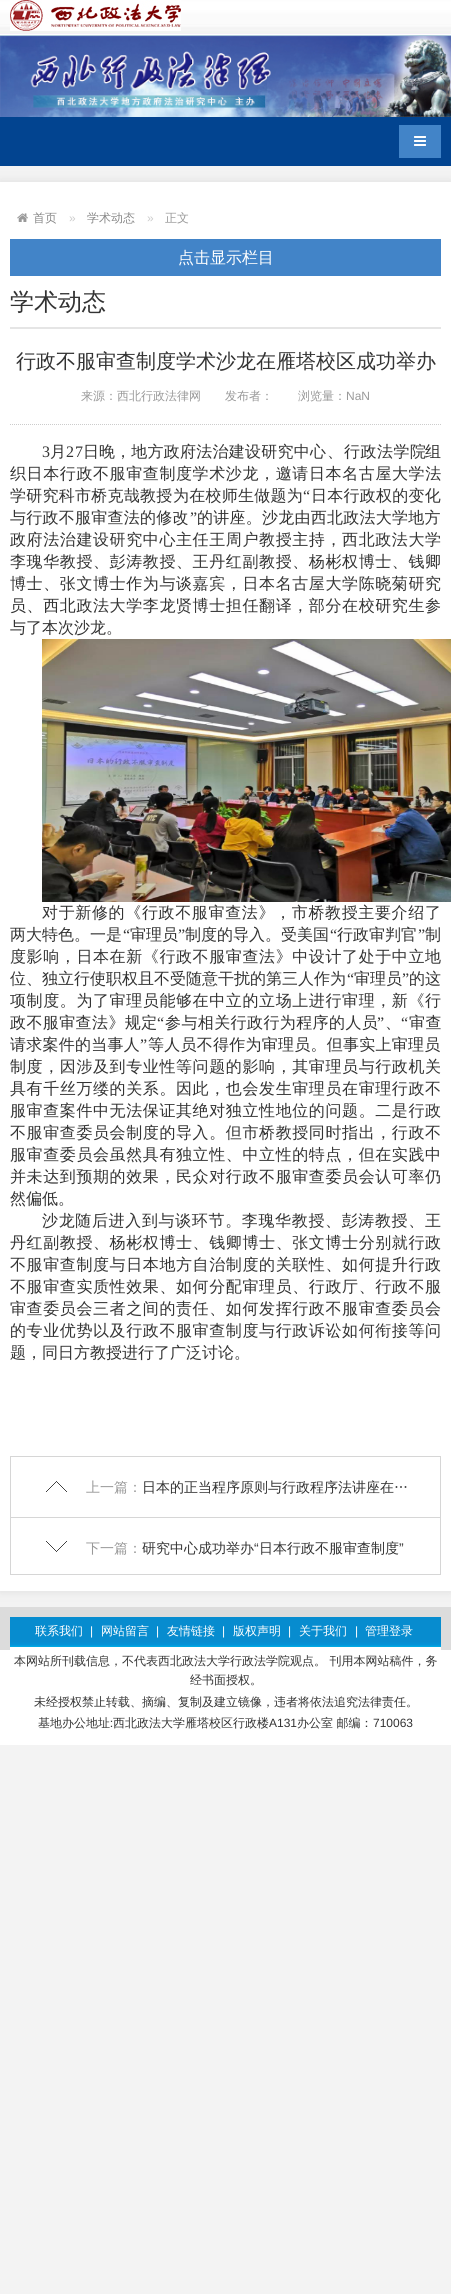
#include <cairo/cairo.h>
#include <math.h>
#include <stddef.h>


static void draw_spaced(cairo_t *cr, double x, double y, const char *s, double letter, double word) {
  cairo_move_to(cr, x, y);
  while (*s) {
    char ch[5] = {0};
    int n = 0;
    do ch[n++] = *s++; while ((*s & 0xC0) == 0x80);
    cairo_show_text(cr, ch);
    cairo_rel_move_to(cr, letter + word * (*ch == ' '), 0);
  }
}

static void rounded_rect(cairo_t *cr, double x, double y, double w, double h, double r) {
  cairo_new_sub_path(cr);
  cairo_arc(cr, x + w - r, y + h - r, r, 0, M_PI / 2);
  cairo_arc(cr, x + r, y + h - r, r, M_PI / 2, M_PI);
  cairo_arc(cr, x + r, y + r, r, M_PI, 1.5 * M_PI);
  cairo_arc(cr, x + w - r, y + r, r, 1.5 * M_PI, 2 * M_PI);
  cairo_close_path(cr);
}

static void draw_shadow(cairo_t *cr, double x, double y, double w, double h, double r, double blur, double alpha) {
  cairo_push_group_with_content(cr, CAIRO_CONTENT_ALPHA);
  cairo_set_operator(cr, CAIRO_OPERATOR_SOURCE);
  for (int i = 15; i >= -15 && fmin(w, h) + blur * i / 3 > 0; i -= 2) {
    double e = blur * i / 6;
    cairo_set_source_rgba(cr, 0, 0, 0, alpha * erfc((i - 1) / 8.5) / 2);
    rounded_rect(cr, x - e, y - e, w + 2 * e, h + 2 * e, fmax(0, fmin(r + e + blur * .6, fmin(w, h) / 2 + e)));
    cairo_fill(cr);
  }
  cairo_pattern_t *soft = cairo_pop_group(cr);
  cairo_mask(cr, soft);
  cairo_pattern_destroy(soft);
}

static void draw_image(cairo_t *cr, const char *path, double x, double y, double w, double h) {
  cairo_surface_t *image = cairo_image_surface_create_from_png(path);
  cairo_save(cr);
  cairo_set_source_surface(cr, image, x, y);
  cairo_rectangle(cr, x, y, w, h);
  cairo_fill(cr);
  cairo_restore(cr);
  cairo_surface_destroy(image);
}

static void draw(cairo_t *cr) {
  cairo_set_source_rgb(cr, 243 / 255.0, 243 / 255.0, 243 / 255.0);
  cairo_paint(cr);
  cairo_set_source_rgb(cr, 2 / 255.0, 68 / 255.0, 144 / 255.0);
  cairo_rectangle(cr, 0, 117, 451, 49);
  cairo_fill(cr);
  draw_image(cr, "images/1.png", 0, 0, 451, 36);
  draw_image(cr, "images/2.png", 10, 0, 171, 31);
  draw_image(cr, "images/3.png", 0, 36, 451, 81);
  cairo_set_source_rgb(cr, 66 / 255.0, 132 / 255.0, 200 / 255.0);
  cairo_rectangle(cr, 399, 125, 42, 33);
  cairo_fill(cr);
  draw_image(cr, "images/4.png", 414, 136, 12, 10);
  cairo_set_source_rgb(cr, 221 / 255.0, 221 / 255.0, 221 / 255.0);
  draw_shadow(cr, 0, 182, 451, 1409, 0, 5, 1);
  cairo_set_source_rgb(cr, 1, 1, 1);
  cairo_rectangle(cr, 0, 182, 451, 1409);
  cairo_fill(cr);
  draw_image(cr, "images/5.png", 17, 213, 11, 9);
  cairo_set_source_rgb(cr, 66 / 255.0, 132 / 255.0, 200 / 255.0);
  cairo_rectangle(cr, 10, 239, 431, 37);
  cairo_fill(cr);
  cairo_set_source_rgb(cr, 229 / 255.0, 229 / 255.0, 229 / 255.0);
  cairo_rectangle(cr, 10, 327, 431, 2);
  cairo_fill(cr);
  cairo_new_path(cr);
  cairo_move_to(cr, 10, 424.5);
  cairo_line_to(cr, 441, 424.5);
  cairo_set_source_rgb(cr, 204 / 255.0, 204 / 255.0, 204 / 255.0);
  cairo_set_line_width(cr, 1);
  cairo_set_dash(cr, (double[]){1, 1}, 2, 0);
  cairo_stroke(cr);
  draw_image(cr, "images/6.png", 42, 639, 409, 263);
  draw_image(cr, "images/7.png", 46, 1481, 21, 71);
  cairo_rectangle(cr, 10.5, 1456.5, 430, 118);
  cairo_set_source_rgb(cr, 214 / 255.0, 214 / 255.0, 214 / 255.0);
  cairo_set_dash(cr, NULL, 0, 0);
  cairo_stroke(cr);
  cairo_rectangle(cr, 11, 1517, 429, 1);
  cairo_fill(cr);
  cairo_set_source_rgb(cr, 1, 1, 1);
  cairo_rectangle(cr, 0, 1650, 451, 95);
  cairo_fill(cr);
  cairo_set_source_rgb(cr, 220 / 255.0, 220 / 255.0, 220 / 255.0);
  cairo_rectangle(cr, 0, 1607, 451, 43);
  cairo_fill(cr);
  draw_image(cr, "images/8.png", 10, 1642, 431, 8);
  cairo_set_source_rgb(cr, 7 / 255.0, 140 / 255.0, 207 / 255.0);
  cairo_rectangle(cr, 10, 1617, 431, 25);
  cairo_fill(cr);
  cairo_select_font_face(cr, "WenQuanYi Zen Hei Medium", CAIRO_FONT_SLANT_NORMAL, CAIRO_FONT_WEIGHT_NORMAL);
  cairo_set_font_size(cr, 12);
  cairo_set_source_rgb(cr, 136 / 255.0, 136 / 255.0, 136 / 255.0);
  cairo_move_to(cr, 33, 222);
  cairo_show_text(cr, "首页");
  cairo_select_font_face(cr, "Liberation Sans", CAIRO_FONT_SLANT_NORMAL, CAIRO_FONT_WEIGHT_NORMAL);
  cairo_set_source_rgb(cr, 204 / 255.0, 204 / 255.0, 204 / 255.0);
  cairo_move_to(cr, 69, 222);
  cairo_show_text(cr, "»");
  cairo_select_font_face(cr, "WenQuanYi Zen Hei Medium", CAIRO_FONT_SLANT_NORMAL, CAIRO_FONT_WEIGHT_NORMAL);
  cairo_set_source_rgb(cr, 136 / 255.0, 136 / 255.0, 136 / 255.0);
  cairo_move_to(cr, 87, 222);
  cairo_show_text(cr, "学术动态");
  cairo_select_font_face(cr, "Liberation Sans", CAIRO_FONT_SLANT_NORMAL, CAIRO_FONT_WEIGHT_NORMAL);
  cairo_set_source_rgb(cr, 204 / 255.0, 204 / 255.0, 204 / 255.0);
  cairo_move_to(cr, 147, 222);
  cairo_show_text(cr, "»");
  cairo_select_font_face(cr, "WenQuanYi Zen Hei Medium", CAIRO_FONT_SLANT_NORMAL, CAIRO_FONT_WEIGHT_NORMAL);
  cairo_set_source_rgb(cr, 153 / 255.0, 153 / 255.0, 153 / 255.0);
  cairo_move_to(cr, 165, 222);
  cairo_show_text(cr, "正文");
  cairo_set_font_size(cr, 16);
  cairo_set_source_rgb(cr, 1, 1, 1);
  cairo_move_to(cr, 178, 263);
  cairo_show_text(cr, "点击显示栏目");
  cairo_set_font_size(cr, 24);
  cairo_set_source_rgb(cr, 51 / 255.0, 51 / 255.0, 51 / 255.0);
  cairo_move_to(cr, 10, 310);
  cairo_show_text(cr, "学术动态");
  cairo_set_font_size(cr, 20);
  cairo_move_to(cr, 16, 368);
  cairo_show_text(cr, "行政不服审查制度学术沙龙在雁塔校区成功举办");
  cairo_set_font_size(cr, 12);
  cairo_set_source_rgb(cr, 153 / 255.0, 153 / 255.0, 153 / 255.0);
  cairo_move_to(cr, 81, 400);
  cairo_show_text(cr, "来源：西北行政法律网");
  cairo_move_to(cr, 225, 400);
  cairo_show_text(cr, "发布者：");
  cairo_move_to(cr, 298, 400);
  cairo_show_text(cr, "浏览量：");
  cairo_select_font_face(cr, "Liberation Sans", CAIRO_FONT_SLANT_NORMAL, CAIRO_FONT_WEIGHT_NORMAL);
  cairo_move_to(cr, 346, 400);
  cairo_show_text(cr, "NaN");
  cairo_select_font_face(cr, "Liberation Serif", CAIRO_FONT_SLANT_NORMAL, CAIRO_FONT_WEIGHT_NORMAL);
  cairo_set_font_size(cr, 16);
  cairo_set_source_rgb(cr, 51 / 255.0, 51 / 255.0, 51 / 255.0);
  cairo_move_to(cr, 42, 457);
  cairo_show_text(cr, "3");
  cairo_select_font_face(cr, "WenQuanYi Zen Hei Medium", CAIRO_FONT_SLANT_NORMAL, CAIRO_FONT_WEIGHT_NORMAL);
  cairo_move_to(cr, 50, 457);
  cairo_show_text(cr, "月");
  cairo_select_font_face(cr, "Liberation Serif", CAIRO_FONT_SLANT_NORMAL, CAIRO_FONT_WEIGHT_NORMAL);
  cairo_move_to(cr, 66, 457);
  cairo_show_text(cr, "2");
  cairo_move_to(cr, 75, 457);
  cairo_show_text(cr, "7");
  cairo_select_font_face(cr, "WenQuanYi Zen Hei Medium", CAIRO_FONT_SLANT_NORMAL, CAIRO_FONT_WEIGHT_NORMAL);
  cairo_move_to(cr, 83, 457);
  cairo_show_text(cr, "日");
  cairo_move_to(cr, 99, 457);
  cairo_show_text(cr, "晚");
  draw_spaced(cr, 115, 457, "，地方政府法治建设研究中心", 0.25, 0);
  cairo_move_to(cr, 327, 457);
  cairo_show_text(cr, "、");
  draw_spaced(cr, 344, 457, "行政法学院", 0.5, 0);
  cairo_move_to(cr, 425, 457);
  cairo_show_text(cr, "组");
  draw_spaced(cr, 10, 479, "织日本行政不服审查制度学术沙龙，邀请", 0.6, 0);
  draw_spaced(cr, 309, 479, "日本名古屋大学法", 0.6, 0);
  draw_spaced(cr, 10, 501, "学研究科市桥克哉教授", 0.25, 0);
  draw_spaced(cr, 173, 501, "为在校师生做题为", 0.25, 0);
  cairo_select_font_face(cr, "Liberation Serif", CAIRO_FONT_SLANT_NORMAL, CAIRO_FONT_WEIGHT_NORMAL);
  draw_spaced(cr, 303, 501, "“", 0.25, 0);
  cairo_select_font_face(cr, "WenQuanYi Zen Hei Medium", CAIRO_FONT_SLANT_NORMAL, CAIRO_FONT_WEIGHT_NORMAL);
  draw_spaced(cr, 311, 501, "日本行政权的变化", 0.25, 0);
  draw_spaced(cr, 10, 523, "与行政不服审查法的修改", 0.25, 0);
  cairo_select_font_face(cr, "Liberation Serif", CAIRO_FONT_SLANT_NORMAL, CAIRO_FONT_WEIGHT_NORMAL);
  draw_spaced(cr, 190, 523, "”", 0.25, 0);
  cairo_select_font_face(cr, "WenQuanYi Zen Hei Medium", CAIRO_FONT_SLANT_NORMAL, CAIRO_FONT_WEIGHT_NORMAL);
  draw_spaced(cr, 197, 523, "的讲座。", 0.25, 0);
  draw_spaced(cr, 262, 523, "沙龙由西北政法大学地方", 0.25, 0);
  draw_spaced(cr, 10, 545, "政府法治建设研究中心主任王周户教授主持，西北政法大学", 0.6, 0);
  draw_spaced(cr, 10, 567, "李瑰华教授、彭涛教授、王丹红副教授、杨彬权博士、钱卿", 0.6, 0);
  draw_spaced(cr, 10, 589, "博士、张文博士作为与谈嘉宾，日本名古屋大学陈晓菊研究", 0.6, 0);
  draw_spaced(cr, 10, 611, "员、西北政法大学李龙贤博士担任翻译，部分在校研究生参", 0.6, 0);
  cairo_move_to(cr, 10, 633);
  cairo_show_text(cr, "与了本次沙龙。");
  draw_spaced(cr, 42, 918, "对于新修的《行政不服审查法》，市桥教授主要介绍了", 0.65, 0);
  cairo_move_to(cr, 10, 940);
  cairo_show_text(cr, "两大特色。一是");
  cairo_select_font_face(cr, "Liberation Serif", CAIRO_FONT_SLANT_NORMAL, CAIRO_FONT_WEIGHT_NORMAL);
  cairo_move_to(cr, 123, 940);
  cairo_show_text(cr, "“");
  cairo_select_font_face(cr, "WenQuanYi Zen Hei Medium", CAIRO_FONT_SLANT_NORMAL, CAIRO_FONT_WEIGHT_NORMAL);
  cairo_move_to(cr, 130, 940);
  cairo_show_text(cr, "审理员");
  cairo_select_font_face(cr, "Liberation Serif", CAIRO_FONT_SLANT_NORMAL, CAIRO_FONT_WEIGHT_NORMAL);
  cairo_move_to(cr, 178, 940);
  cairo_show_text(cr, "”");
  cairo_select_font_face(cr, "WenQuanYi Zen Hei Medium", CAIRO_FONT_SLANT_NORMAL, CAIRO_FONT_WEIGHT_NORMAL);
  cairo_move_to(cr, 185, 940);
  cairo_show_text(cr, "制度的导入。受美国");
  cairo_select_font_face(cr, "Liberation Serif", CAIRO_FONT_SLANT_NORMAL, CAIRO_FONT_WEIGHT_NORMAL);
  cairo_move_to(cr, 330, 940);
  cairo_show_text(cr, "“");
  cairo_select_font_face(cr, "WenQuanYi Zen Hei Medium", CAIRO_FONT_SLANT_NORMAL, CAIRO_FONT_WEIGHT_NORMAL);
  cairo_move_to(cr, 337, 940);
  cairo_show_text(cr, "行政审判官");
  cairo_select_font_face(cr, "Liberation Serif", CAIRO_FONT_SLANT_NORMAL, CAIRO_FONT_WEIGHT_NORMAL);
  cairo_move_to(cr, 418, 940);
  cairo_show_text(cr, "”");
  cairo_select_font_face(cr, "WenQuanYi Zen Hei Medium", CAIRO_FONT_SLANT_NORMAL, CAIRO_FONT_WEIGHT_NORMAL);
  cairo_move_to(cr, 425, 940);
  cairo_show_text(cr, "制");
  draw_spaced(cr, 10, 962, "度影响，日本在新《行政不服审查法》中设计了处于中立地", 0.6, 0);
  cairo_move_to(cr, 10, 984);
  cairo_show_text(cr, "位、独立行使职权且不受随意干扰的第三人作为");
  cairo_select_font_face(cr, "Liberation Serif", CAIRO_FONT_SLANT_NORMAL, CAIRO_FONT_WEIGHT_NORMAL);
  cairo_move_to(cr, 347, 984);
  cairo_show_text(cr, "“");
  cairo_select_font_face(cr, "WenQuanYi Zen Hei Medium", CAIRO_FONT_SLANT_NORMAL, CAIRO_FONT_WEIGHT_NORMAL);
  cairo_move_to(cr, 354, 984);
  cairo_show_text(cr, "审理员");
  cairo_select_font_face(cr, "Liberation Serif", CAIRO_FONT_SLANT_NORMAL, CAIRO_FONT_WEIGHT_NORMAL);
  cairo_move_to(cr, 402, 984);
  cairo_show_text(cr, "”");
  cairo_select_font_face(cr, "WenQuanYi Zen Hei Medium", CAIRO_FONT_SLANT_NORMAL, CAIRO_FONT_WEIGHT_NORMAL);
  cairo_move_to(cr, 409, 984);
  cairo_show_text(cr, "的这");
  draw_spaced(cr, 10, 1006, "项制度。为了审理员能够在中立的立场上进行审理，新《行", 0.6, 0);
  draw_spaced(cr, 10, 1028, "政不服审查法》规定", 0.4, 0);
  cairo_select_font_face(cr, "Liberation Serif", CAIRO_FONT_SLANT_NORMAL, CAIRO_FONT_WEIGHT_NORMAL);
  draw_spaced(cr, 157, 1028, "“", 0.4, 0);
  cairo_select_font_face(cr, "WenQuanYi Zen Hei Medium", CAIRO_FONT_SLANT_NORMAL, CAIRO_FONT_WEIGHT_NORMAL);
  draw_spaced(cr, 165, 1028, "参与相关行政行为程序的人员", 0.4, 0);
  cairo_select_font_face(cr, "Liberation Serif", CAIRO_FONT_SLANT_NORMAL, CAIRO_FONT_WEIGHT_NORMAL);
  draw_spaced(cr, 377, 1028, "”", 0.4, 0);
  draw_spaced(cr, 401, 1028, "“", 0.4, 0);
  cairo_select_font_face(cr, "WenQuanYi Zen Hei Medium", CAIRO_FONT_SLANT_NORMAL, CAIRO_FONT_WEIGHT_NORMAL);
  draw_spaced(cr, 409, 1028, "审查", 0.4, 0);
  draw_spaced(cr, 385, 1028, "、", 0.4, 0);
  draw_spaced(cr, 10, 1050, "请求案件的当事人", 0.25, 0);
  cairo_select_font_face(cr, "Liberation Serif", CAIRO_FONT_SLANT_NORMAL, CAIRO_FONT_WEIGHT_NORMAL);
  draw_spaced(cr, 140, 1050, "”", 0.25, 0);
  cairo_select_font_face(cr, "WenQuanYi Zen Hei Medium", CAIRO_FONT_SLANT_NORMAL, CAIRO_FONT_WEIGHT_NORMAL);
  draw_spaced(cr, 148, 1050, "等人员不得作为审理员。但事实上审理员", 0.25, 0);
  draw_spaced(cr, 10, 1072, "制度，因涉及到专业性等问题的影响，其审理员与行政机关", 0.6, 0);
  draw_spaced(cr, 10, 1094, "具有千丝万缕的关系。因此，也会发生审理员在审理行政不", 0.6, 0);
  draw_spaced(cr, 10, 1116, "服审查案件中无法保证其绝对独立性地位的问题。二是行政", 0.6, 0);
  draw_spaced(cr, 10, 1138, "不服审查委员会制度的导入。但市桥教授同时指出，行政不", 0.6, 0);
  draw_spaced(cr, 10, 1160, "服审查委员会虽然具有独立性、中立性的特点，但在实践中", 0.6, 0);
  draw_spaced(cr, 10, 1182, "并未达到预期的效果，民众对行政不服审查委员会认可率仍", 0.6, 0);
  cairo_move_to(cr, 10, 1204);
  cairo_show_text(cr, "然偏低。");
  draw_spaced(cr, 42, 1226, "沙龙随后进入到与谈环节。李瑰华教授、彭涛教授、王", 0.65, 0);
  draw_spaced(cr, 10, 1248, "丹红副教授、杨彬权博士、钱卿博士、张文博士分别就行政", 0.6, 0);
  draw_spaced(cr, 10, 1270, "不服审查制度与日本地方自治制度的关联性、如何提升行政", 0.6, 0);
  draw_spaced(cr, 10, 1292, "不服审查实质性效果、如何分配审理员、行政厅、行政不服", 0.6, 0);
  draw_spaced(cr, 10, 1314, "审查委员会三者之间的责任、如何发挥行政不服审查委员会", 0.6, 0);
  draw_spaced(cr, 10, 1336, "的专业优势以及行政不服审查制度与行政诉讼如何衔接等问", 0.6, 0);
  cairo_move_to(cr, 10, 1358);
  cairo_show_text(cr, "题，同日方教授进行了广泛讨论。");
  cairo_set_font_size(cr, 14);
  cairo_set_source_rgb(cr, 153 / 255.0, 153 / 255.0, 153 / 255.0);
  cairo_move_to(cr, 86, 1492);
  cairo_show_text(cr, "上一篇：");
  cairo_set_source_rgb(cr, 51 / 255.0, 51 / 255.0, 51 / 255.0);
  cairo_move_to(cr, 142, 1492);
  cairo_show_text(cr, "日本的正当程序原则与行政程序法讲座在…");
  cairo_set_source_rgb(cr, 153 / 255.0, 153 / 255.0, 153 / 255.0);
  cairo_move_to(cr, 86, 1553);
  cairo_show_text(cr, "下一篇：");
  cairo_set_source_rgb(cr, 51 / 255.0, 51 / 255.0, 51 / 255.0);
  cairo_move_to(cr, 142, 1553);
  cairo_show_text(cr, "研究中心成功举办");
  cairo_select_font_face(cr, "Liberation Sans", CAIRO_FONT_SLANT_NORMAL, CAIRO_FONT_WEIGHT_NORMAL);
  cairo_move_to(cr, 254, 1553);
  cairo_show_text(cr, "“");
  cairo_select_font_face(cr, "WenQuanYi Zen Hei Medium", CAIRO_FONT_SLANT_NORMAL, CAIRO_FONT_WEIGHT_NORMAL);
  cairo_move_to(cr, 259, 1553);
  cairo_show_text(cr, "日本行政不服审查制度");
  cairo_select_font_face(cr, "Liberation Sans", CAIRO_FONT_SLANT_NORMAL, CAIRO_FONT_WEIGHT_NORMAL);
  cairo_move_to(cr, 399, 1553);
  cairo_show_text(cr, "”");
  cairo_select_font_face(cr, "WenQuanYi Zen Hei Medium", CAIRO_FONT_SLANT_NORMAL, CAIRO_FONT_WEIGHT_NORMAL);
  cairo_set_font_size(cr, 12);
  cairo_set_source_rgb(cr, 1, 1, 1);
  cairo_move_to(cr, 35, 1635);
  cairo_show_text(cr, "联系我们");
  cairo_select_font_face(cr, "Liberation Sans", CAIRO_FONT_SLANT_NORMAL, CAIRO_FONT_WEIGHT_NORMAL);
  cairo_move_to(cr, 90, 1635);
  cairo_show_text(cr, "|");
  cairo_select_font_face(cr, "WenQuanYi Zen Hei Medium", CAIRO_FONT_SLANT_NORMAL, CAIRO_FONT_WEIGHT_NORMAL);
  cairo_move_to(cr, 101, 1635);
  cairo_show_text(cr, "网站留言");
  cairo_select_font_face(cr, "Liberation Sans", CAIRO_FONT_SLANT_NORMAL, CAIRO_FONT_WEIGHT_NORMAL);
  cairo_move_to(cr, 156, 1635);
  cairo_show_text(cr, "|");
  cairo_select_font_face(cr, "WenQuanYi Zen Hei Medium", CAIRO_FONT_SLANT_NORMAL, CAIRO_FONT_WEIGHT_NORMAL);
  cairo_move_to(cr, 167, 1635);
  cairo_show_text(cr, "友情链接");
  cairo_select_font_face(cr, "Liberation Sans", CAIRO_FONT_SLANT_NORMAL, CAIRO_FONT_WEIGHT_NORMAL);
  cairo_move_to(cr, 222, 1635);
  cairo_show_text(cr, "|");
  cairo_select_font_face(cr, "WenQuanYi Zen Hei Medium", CAIRO_FONT_SLANT_NORMAL, CAIRO_FONT_WEIGHT_NORMAL);
  cairo_move_to(cr, 233, 1635);
  cairo_show_text(cr, "版权声明");
  cairo_select_font_face(cr, "Liberation Sans", CAIRO_FONT_SLANT_NORMAL, CAIRO_FONT_WEIGHT_NORMAL);
  cairo_move_to(cr, 288, 1635);
  cairo_show_text(cr, "|");
  cairo_select_font_face(cr, "WenQuanYi Zen Hei Medium", CAIRO_FONT_SLANT_NORMAL, CAIRO_FONT_WEIGHT_NORMAL);
  cairo_move_to(cr, 299, 1635);
  cairo_show_text(cr, "关于我们");
  cairo_select_font_face(cr, "Liberation Sans", CAIRO_FONT_SLANT_NORMAL, CAIRO_FONT_WEIGHT_NORMAL);
  cairo_move_to(cr, 355, 1635);
  cairo_show_text(cr, "|");
  cairo_select_font_face(cr, "WenQuanYi Zen Hei Medium", CAIRO_FONT_SLANT_NORMAL, CAIRO_FONT_WEIGHT_NORMAL);
  cairo_move_to(cr, 365, 1635);
  cairo_show_text(cr, "管理登录");
  cairo_set_source_rgb(cr, 51 / 255.0, 51 / 255.0, 51 / 255.0);
  cairo_move_to(cr, 14, 1665);
  cairo_show_text(cr, "本网站所刊载信息，不代表西北政法大学行政法学院观点。 刊用本网站稿件，务");
  cairo_move_to(cr, 190, 1684);
  cairo_show_text(cr, "经书面授权。");
  cairo_move_to(cr, 34, 1706);
  cairo_show_text(cr, "未经授权禁止转载、摘编、复制及建立镜像，违者将依法追究法律责任。");
  cairo_move_to(cr, 38, 1727);
  cairo_show_text(cr, "基地办公地址");
  cairo_select_font_face(cr, "FreeSans", CAIRO_FONT_SLANT_NORMAL, CAIRO_FONT_WEIGHT_NORMAL);
  cairo_move_to(cr, 110, 1727);
  cairo_show_text(cr, "∶");
  cairo_select_font_face(cr, "WenQuanYi Zen Hei Medium", CAIRO_FONT_SLANT_NORMAL, CAIRO_FONT_WEIGHT_NORMAL);
  cairo_move_to(cr, 113, 1727);
  cairo_show_text(cr, "西北政法大学雁塔校区行政楼");
  cairo_select_font_face(cr, "Liberation Sans", CAIRO_FONT_SLANT_NORMAL, CAIRO_FONT_WEIGHT_NORMAL);
  cairo_move_to(cr, 269, 1727);
  cairo_show_text(cr, "A131");
  cairo_select_font_face(cr, "WenQuanYi Zen Hei Medium", CAIRO_FONT_SLANT_NORMAL, CAIRO_FONT_WEIGHT_NORMAL);
  cairo_move_to(cr, 297, 1727);
  cairo_show_text(cr, "办公室 邮编：");
  cairo_select_font_face(cr, "Liberation Sans", CAIRO_FONT_SLANT_NORMAL, CAIRO_FONT_WEIGHT_NORMAL);
  cairo_move_to(cr, 373, 1727);
  cairo_show_text(cr, "710063");
}

int main(void) {
  cairo_surface_t *surface = cairo_image_surface_create(CAIRO_FORMAT_RGB24, 451, 2294);
  cairo_t *cr = cairo_create(surface);
  cairo_font_options_t *options = cairo_font_options_create();
  cairo_font_options_set_hint_metrics(options, CAIRO_HINT_METRICS_OFF);
  cairo_font_options_set_hint_style(options, CAIRO_HINT_STYLE_NONE);
  cairo_set_font_options(cr, options);
  cairo_set_miter_limit(cr, 4);
  draw(cr);
  cairo_surface_write_to_png(surface, "out.png");
  cairo_font_options_destroy(options);
  cairo_destroy(cr);
  cairo_surface_destroy(surface);
  return 0;
}
